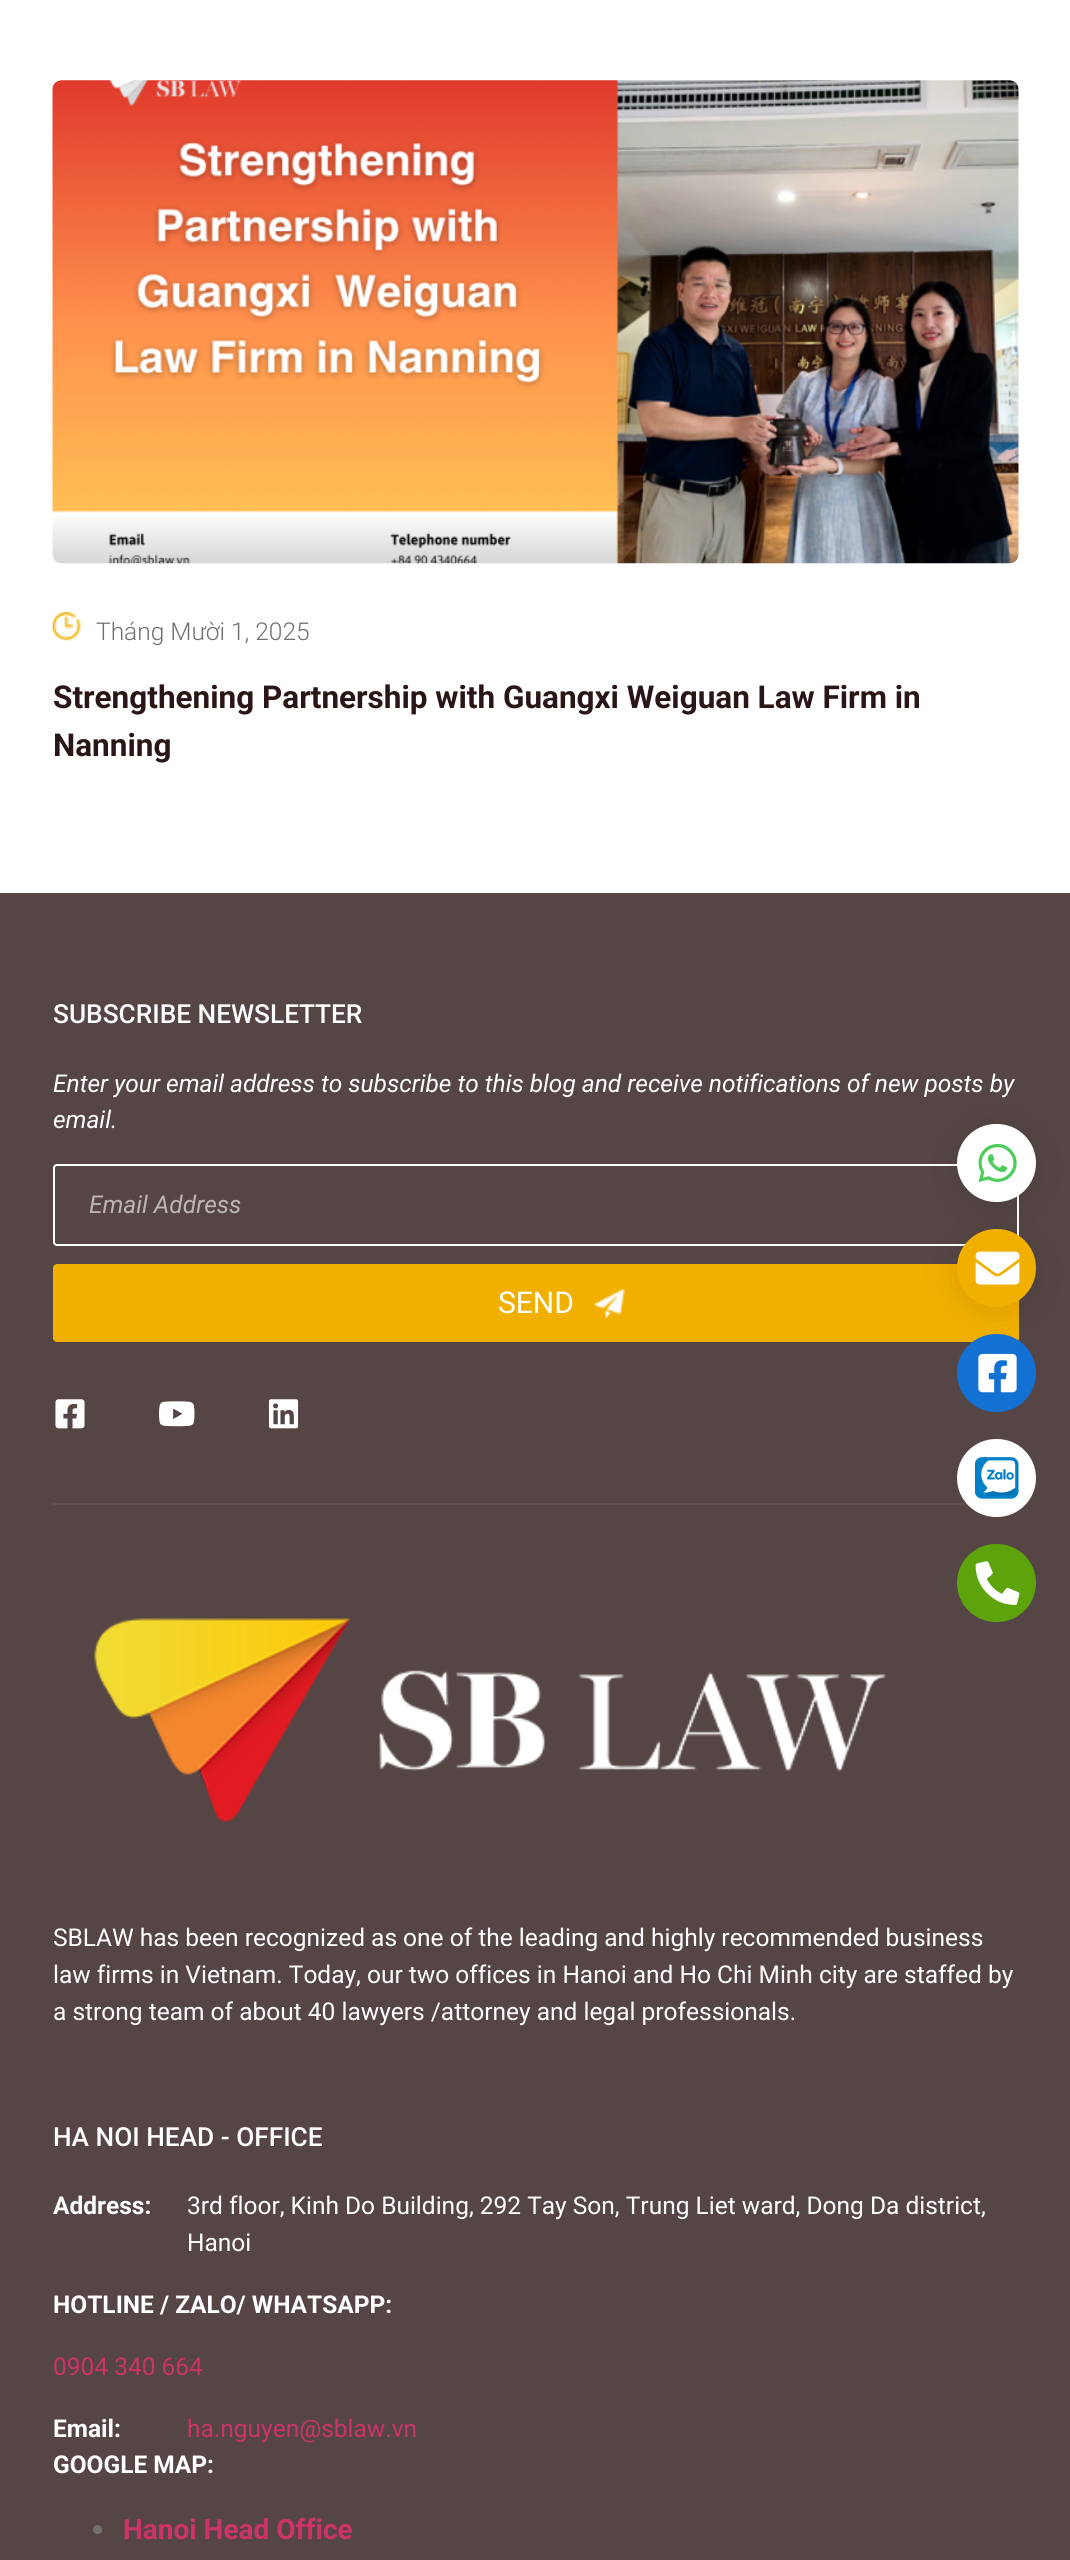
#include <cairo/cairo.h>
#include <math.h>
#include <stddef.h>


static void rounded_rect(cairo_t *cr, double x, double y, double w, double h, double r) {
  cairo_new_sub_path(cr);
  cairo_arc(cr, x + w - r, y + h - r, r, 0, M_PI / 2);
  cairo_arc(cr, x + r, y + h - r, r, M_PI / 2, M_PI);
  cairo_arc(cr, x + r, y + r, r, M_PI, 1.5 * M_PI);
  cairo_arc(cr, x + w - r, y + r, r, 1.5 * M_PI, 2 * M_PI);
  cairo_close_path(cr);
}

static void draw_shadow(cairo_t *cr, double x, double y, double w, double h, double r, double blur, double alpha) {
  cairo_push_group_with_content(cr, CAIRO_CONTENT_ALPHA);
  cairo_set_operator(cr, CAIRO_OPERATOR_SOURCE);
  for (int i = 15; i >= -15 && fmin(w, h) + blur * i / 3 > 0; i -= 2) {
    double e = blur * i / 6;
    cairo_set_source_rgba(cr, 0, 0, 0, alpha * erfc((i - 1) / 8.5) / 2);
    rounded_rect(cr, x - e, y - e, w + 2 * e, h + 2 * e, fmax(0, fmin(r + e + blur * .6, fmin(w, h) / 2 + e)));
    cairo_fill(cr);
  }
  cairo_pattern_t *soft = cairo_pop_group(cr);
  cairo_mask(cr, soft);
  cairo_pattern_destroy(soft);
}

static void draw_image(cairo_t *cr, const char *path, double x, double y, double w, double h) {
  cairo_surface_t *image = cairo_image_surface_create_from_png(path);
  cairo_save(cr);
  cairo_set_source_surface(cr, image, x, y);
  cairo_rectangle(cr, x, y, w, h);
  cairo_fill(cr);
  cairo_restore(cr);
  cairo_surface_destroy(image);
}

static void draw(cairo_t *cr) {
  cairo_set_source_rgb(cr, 1, 1, 1);
  cairo_paint(cr);
  draw_image(cr, "images/1.png", 52, 80, 967, 484);
  draw_image(cr, "images/2.png", 52, 612, 29, 29);
  cairo_set_source_rgb(cr, 85 / 255.0, 69 / 255.0, 69 / 255.0);
  cairo_rectangle(cr, 0, 893, 1070, 1667);
  cairo_fill(cr);
  cairo_set_source_rgb(cr, 93 / 255.0, 81 / 255.0, 81 / 255.0);
  cairo_rectangle(cr, 53, 1503, 915, 2);
  cairo_fill(cr);
  rounded_rect(cr, 54, 1165, 964, 80, 3);
  cairo_set_source_rgb(cr, 1, 1, 1);
  cairo_stroke(cr);
  cairo_set_source_rgb(cr, 241 / 255.0, 175 / 255.0, 0);
  rounded_rect(cr, 53, 1264, 966, 78, 4);
  cairo_fill(cr);
  draw_image(cr, "images/3.png", 595, 1289, 30, 29);
  cairo_set_source_rgb(cr, 0, 0, 0);
  draw_shadow(cr, 957, 1129, 79, 79, 39.5, 17.5, 0.09);
  cairo_set_source_rgb(cr, 1, 1, 1);
  rounded_rect(cr, 957, 1124, 79, 78, 39);
  cairo_fill(cr);
  draw_image(cr, "images/4.png", 978, 1143, 39, 40);
  cairo_set_source_rgb(cr, 0, 0, 0);
  draw_shadow(cr, 957, 1234, 79, 79, 39.5, 17.5, 0.09);
  cairo_set_source_rgb(cr, 241 / 255.0, 175 / 255.0, 0);
  rounded_rect(cr, 957, 1229, 79, 78, 39);
  cairo_fill(cr);
  draw_image(cr, "images/5.png", 975, 1251, 45, 34);
  cairo_set_source_rgb(cr, 20 / 255.0, 113 / 255.0, 212 / 255.0);
  rounded_rect(cr, 957, 1334, 79, 78, 39);
  cairo_fill(cr);
  draw_image(cr, "images/6.png", 978, 1353, 39, 40);
  cairo_set_source_rgb(cr, 1, 1, 1);
  rounded_rect(cr, 957, 1439, 79, 78, 39);
  cairo_fill(cr);
  draw_image(cr, "images/7.png", 975, 1457, 44, 42);
  cairo_set_source_rgb(cr, 93 / 255.0, 164 / 255.0, 12 / 255.0);
  rounded_rect(cr, 957, 1544, 79, 78, 39);
  cairo_fill(cr);
  draw_image(cr, "images/8.png", 975, 1561, 45, 44);
  draw_image(cr, "images/9.png", 55, 1399, 30, 30);
  draw_image(cr, "images/10.png", 159, 1401, 36, 26);
  draw_image(cr, "images/11.png", 268, 1399, 31, 30);
  draw_image(cr, "images/12.png", 94, 1618, 792, 204);
  cairo_set_source_rgb(cr, 112 / 255.0, 112 / 255.0, 112 / 255.0);
  cairo_arc(cr, 97.5, 2529.5, 4.5, 0, 2 * M_PI);
  cairo_fill(cr);
  cairo_select_font_face(cr, "Roboto Light", CAIRO_FONT_SLANT_NORMAL, CAIRO_FONT_WEIGHT_NORMAL);
  cairo_set_font_size(cr, 24.5);
  cairo_move_to(cr, 96, 640);
  cairo_show_text(cr, "Tháng Mười 1, 2025");
  cairo_select_font_face(cr, "Roboto", CAIRO_FONT_SLANT_NORMAL, CAIRO_FONT_WEIGHT_BOLD);
  cairo_set_font_size(cr, 31.5);
  cairo_set_source_rgb(cr, 42 / 255.0, 22 / 255.0, 22 / 255.0);
  cairo_move_to(cr, 53, 708);
  cairo_show_text(cr, "Strengthening Partnership with Guangxi Weiguan Law Firm in");
  cairo_move_to(cr, 53, 756);
  cairo_show_text(cr, "Nanning");
  cairo_select_font_face(cr, "Roboto Medium", CAIRO_FONT_SLANT_NORMAL, CAIRO_FONT_WEIGHT_NORMAL);
  cairo_set_font_size(cr, 26.25);
  cairo_set_source_rgb(cr, 1, 1, 1);
  cairo_move_to(cr, 53, 1023);
  cairo_show_text(cr, "SUBSCRIBE NEWSLETTER");
  cairo_select_font_face(cr, "Roboto", CAIRO_FONT_SLANT_ITALIC, CAIRO_FONT_WEIGHT_NORMAL);
  cairo_set_font_size(cr, 24.5);
  cairo_move_to(cr, 53, 1092);
  cairo_show_text(cr, "Enter your email address to subscribe to this blog and receive notifications of new posts by");
  cairo_move_to(cr, 53, 1128);
  cairo_show_text(cr, "email.");
  cairo_set_source_rgb(cr, 187 / 255.0, 181 / 255.0, 181 / 255.0);
  cairo_move_to(cr, 89, 1213);
  cairo_show_text(cr, "Email Address");
  cairo_select_font_face(cr, "Roboto", CAIRO_FONT_SLANT_NORMAL, CAIRO_FONT_WEIGHT_NORMAL);
  cairo_set_font_size(cr, 30);
  cairo_set_source_rgb(cr, 1, 1, 1);
  cairo_move_to(cr, 498, 1313);
  cairo_show_text(cr, "SEND");
  cairo_set_font_size(cr, 24.5);
  cairo_move_to(cr, 53, 1946);
  cairo_show_text(cr, "SBLAW has been recognized as one of the leading and highly recommended business");
  cairo_move_to(cr, 53, 1983);
  cairo_show_text(cr, "law firms in Vietnam. Today, our two offices in Hanoi and Ho Chi Minh city are staffed by");
  cairo_move_to(cr, 53, 2020);
  cairo_show_text(cr, "a strong team of about 40 lawyers /attorney and legal professionals.");
  cairo_select_font_face(cr, "Roboto Medium", CAIRO_FONT_SLANT_NORMAL, CAIRO_FONT_WEIGHT_NORMAL);
  cairo_set_font_size(cr, 26.25);
  cairo_move_to(cr, 53, 2146);
  cairo_show_text(cr, "HA NOI HEAD - OFFICE");
  cairo_select_font_face(cr, "Roboto", CAIRO_FONT_SLANT_NORMAL, CAIRO_FONT_WEIGHT_BOLD);
  cairo_set_font_size(cr, 24.5);
  cairo_move_to(cr, 53, 2214);
  cairo_show_text(cr, "Address:");
  cairo_select_font_face(cr, "Roboto", CAIRO_FONT_SLANT_NORMAL, CAIRO_FONT_WEIGHT_NORMAL);
  cairo_move_to(cr, 187, 2214);
  cairo_show_text(cr, "3rd floor, Kinh Do Building, 292 Tay Son, Trung Liet ward, Dong Da district,");
  cairo_move_to(cr, 187, 2251);
  cairo_show_text(cr, "Hanoi");
  cairo_select_font_face(cr, "Roboto", CAIRO_FONT_SLANT_NORMAL, CAIRO_FONT_WEIGHT_BOLD);
  cairo_move_to(cr, 53, 2313);
  cairo_show_text(cr, "HOTLINE / ZALO/ WHATSAPP:");
  cairo_select_font_face(cr, "Roboto", CAIRO_FONT_SLANT_NORMAL, CAIRO_FONT_WEIGHT_NORMAL);
  cairo_set_source_rgb(cr, 204 / 255.0, 51 / 255.0, 102 / 255.0);
  cairo_move_to(cr, 53, 2375);
  cairo_show_text(cr, "0904 340 664");
  cairo_select_font_face(cr, "Roboto", CAIRO_FONT_SLANT_NORMAL, CAIRO_FONT_WEIGHT_BOLD);
  cairo_set_source_rgb(cr, 1, 1, 1);
  cairo_move_to(cr, 53, 2437);
  cairo_show_text(cr, "Email:");
  cairo_select_font_face(cr, "Roboto", CAIRO_FONT_SLANT_NORMAL, CAIRO_FONT_WEIGHT_NORMAL);
  cairo_set_source_rgb(cr, 204 / 255.0, 51 / 255.0, 102 / 255.0);
  cairo_move_to(cr, 187, 2437);
  cairo_show_text(cr, "ha.nguyen@sblaw.vn");
  cairo_select_font_face(cr, "Roboto", CAIRO_FONT_SLANT_NORMAL, CAIRO_FONT_WEIGHT_BOLD);
  cairo_set_source_rgb(cr, 1, 1, 1);
  cairo_move_to(cr, 53, 2473);
  cairo_show_text(cr, "GOOGLE MAP:");
  cairo_set_font_size(cr, 28);
  cairo_set_source_rgb(cr, 204 / 255.0, 51 / 255.0, 102 / 255.0);
  cairo_move_to(cr, 123, 2539);
  cairo_show_text(cr, "Hanoi Head Office");
}

int main(void) {
  cairo_surface_t *surface = cairo_image_surface_create(CAIRO_FORMAT_RGB24, 1070, 2560);
  cairo_t *cr = cairo_create(surface);
  cairo_font_options_t *options = cairo_font_options_create();
  cairo_font_options_set_hint_metrics(options, CAIRO_HINT_METRICS_OFF);
  cairo_font_options_set_hint_style(options, CAIRO_HINT_STYLE_NONE);
  cairo_set_font_options(cr, options);
  cairo_set_miter_limit(cr, 4);
  draw(cr);
  cairo_surface_write_to_png(surface, "out.png");
  cairo_font_options_destroy(options);
  cairo_destroy(cr);
  cairo_surface_destroy(surface);
  return 0;
}
